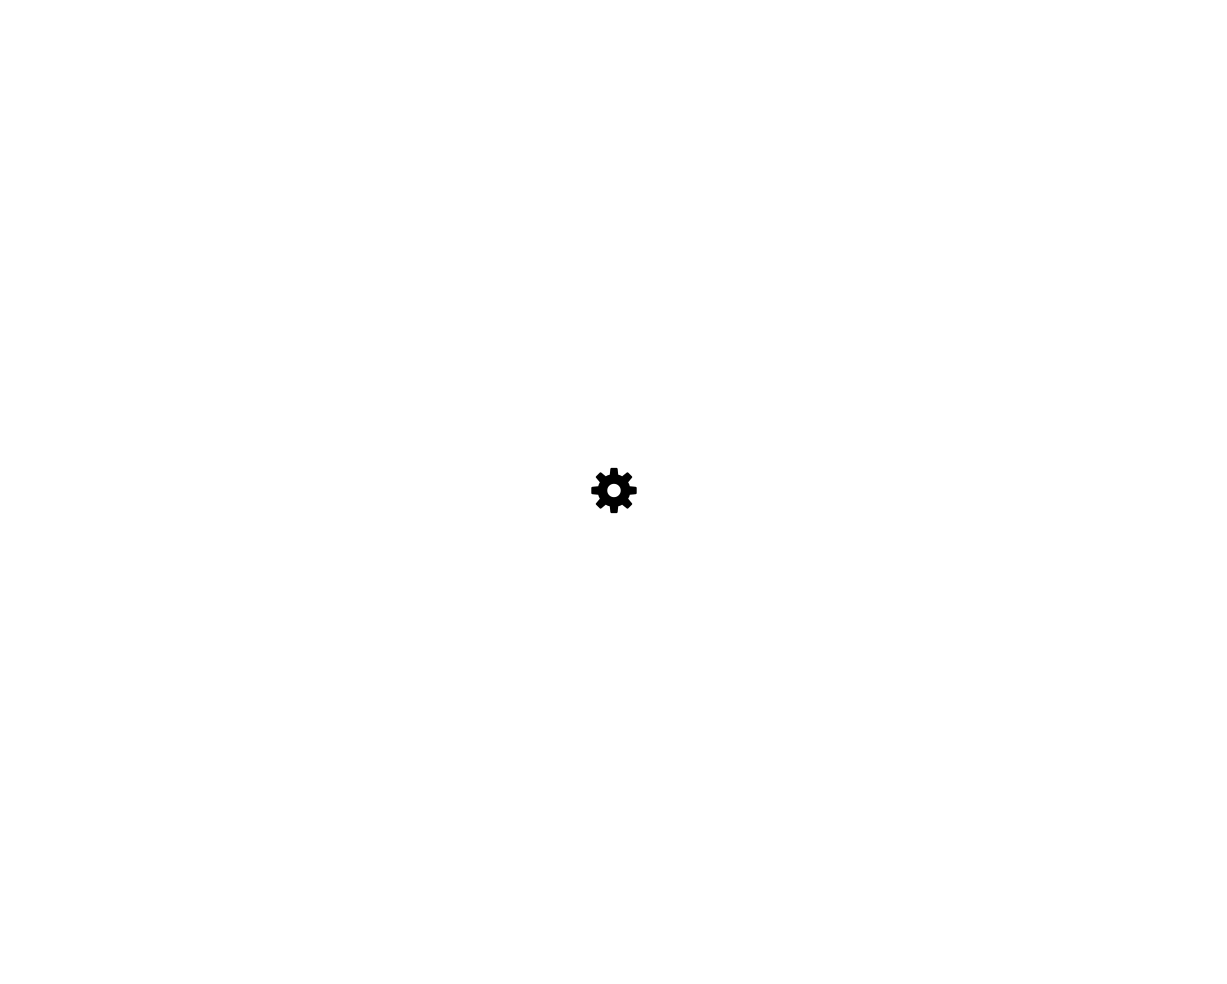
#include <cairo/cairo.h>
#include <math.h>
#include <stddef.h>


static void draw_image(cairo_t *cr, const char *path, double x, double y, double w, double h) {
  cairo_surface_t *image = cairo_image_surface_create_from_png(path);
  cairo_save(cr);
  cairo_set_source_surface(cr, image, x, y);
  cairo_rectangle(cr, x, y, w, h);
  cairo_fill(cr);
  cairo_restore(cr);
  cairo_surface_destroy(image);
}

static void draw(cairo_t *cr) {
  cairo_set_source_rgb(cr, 1, 1, 1);
  cairo_paint(cr);
  draw_image(cr, "images/1.png", 591, 467, 46, 47);
}

int main(void) {
  cairo_surface_t *surface = cairo_image_surface_create(CAIRO_FORMAT_RGB24, 1227, 984);
  cairo_t *cr = cairo_create(surface);
  cairo_font_options_t *options = cairo_font_options_create();
  cairo_font_options_set_hint_metrics(options, CAIRO_HINT_METRICS_OFF);
  cairo_font_options_set_hint_style(options, CAIRO_HINT_STYLE_NONE);
  cairo_set_font_options(cr, options);
  cairo_set_miter_limit(cr, 4);
  draw(cr);
  cairo_surface_write_to_png(surface, "out.png");
  cairo_font_options_destroy(options);
  cairo_destroy(cr);
  cairo_surface_destroy(surface);
  return 0;
}
